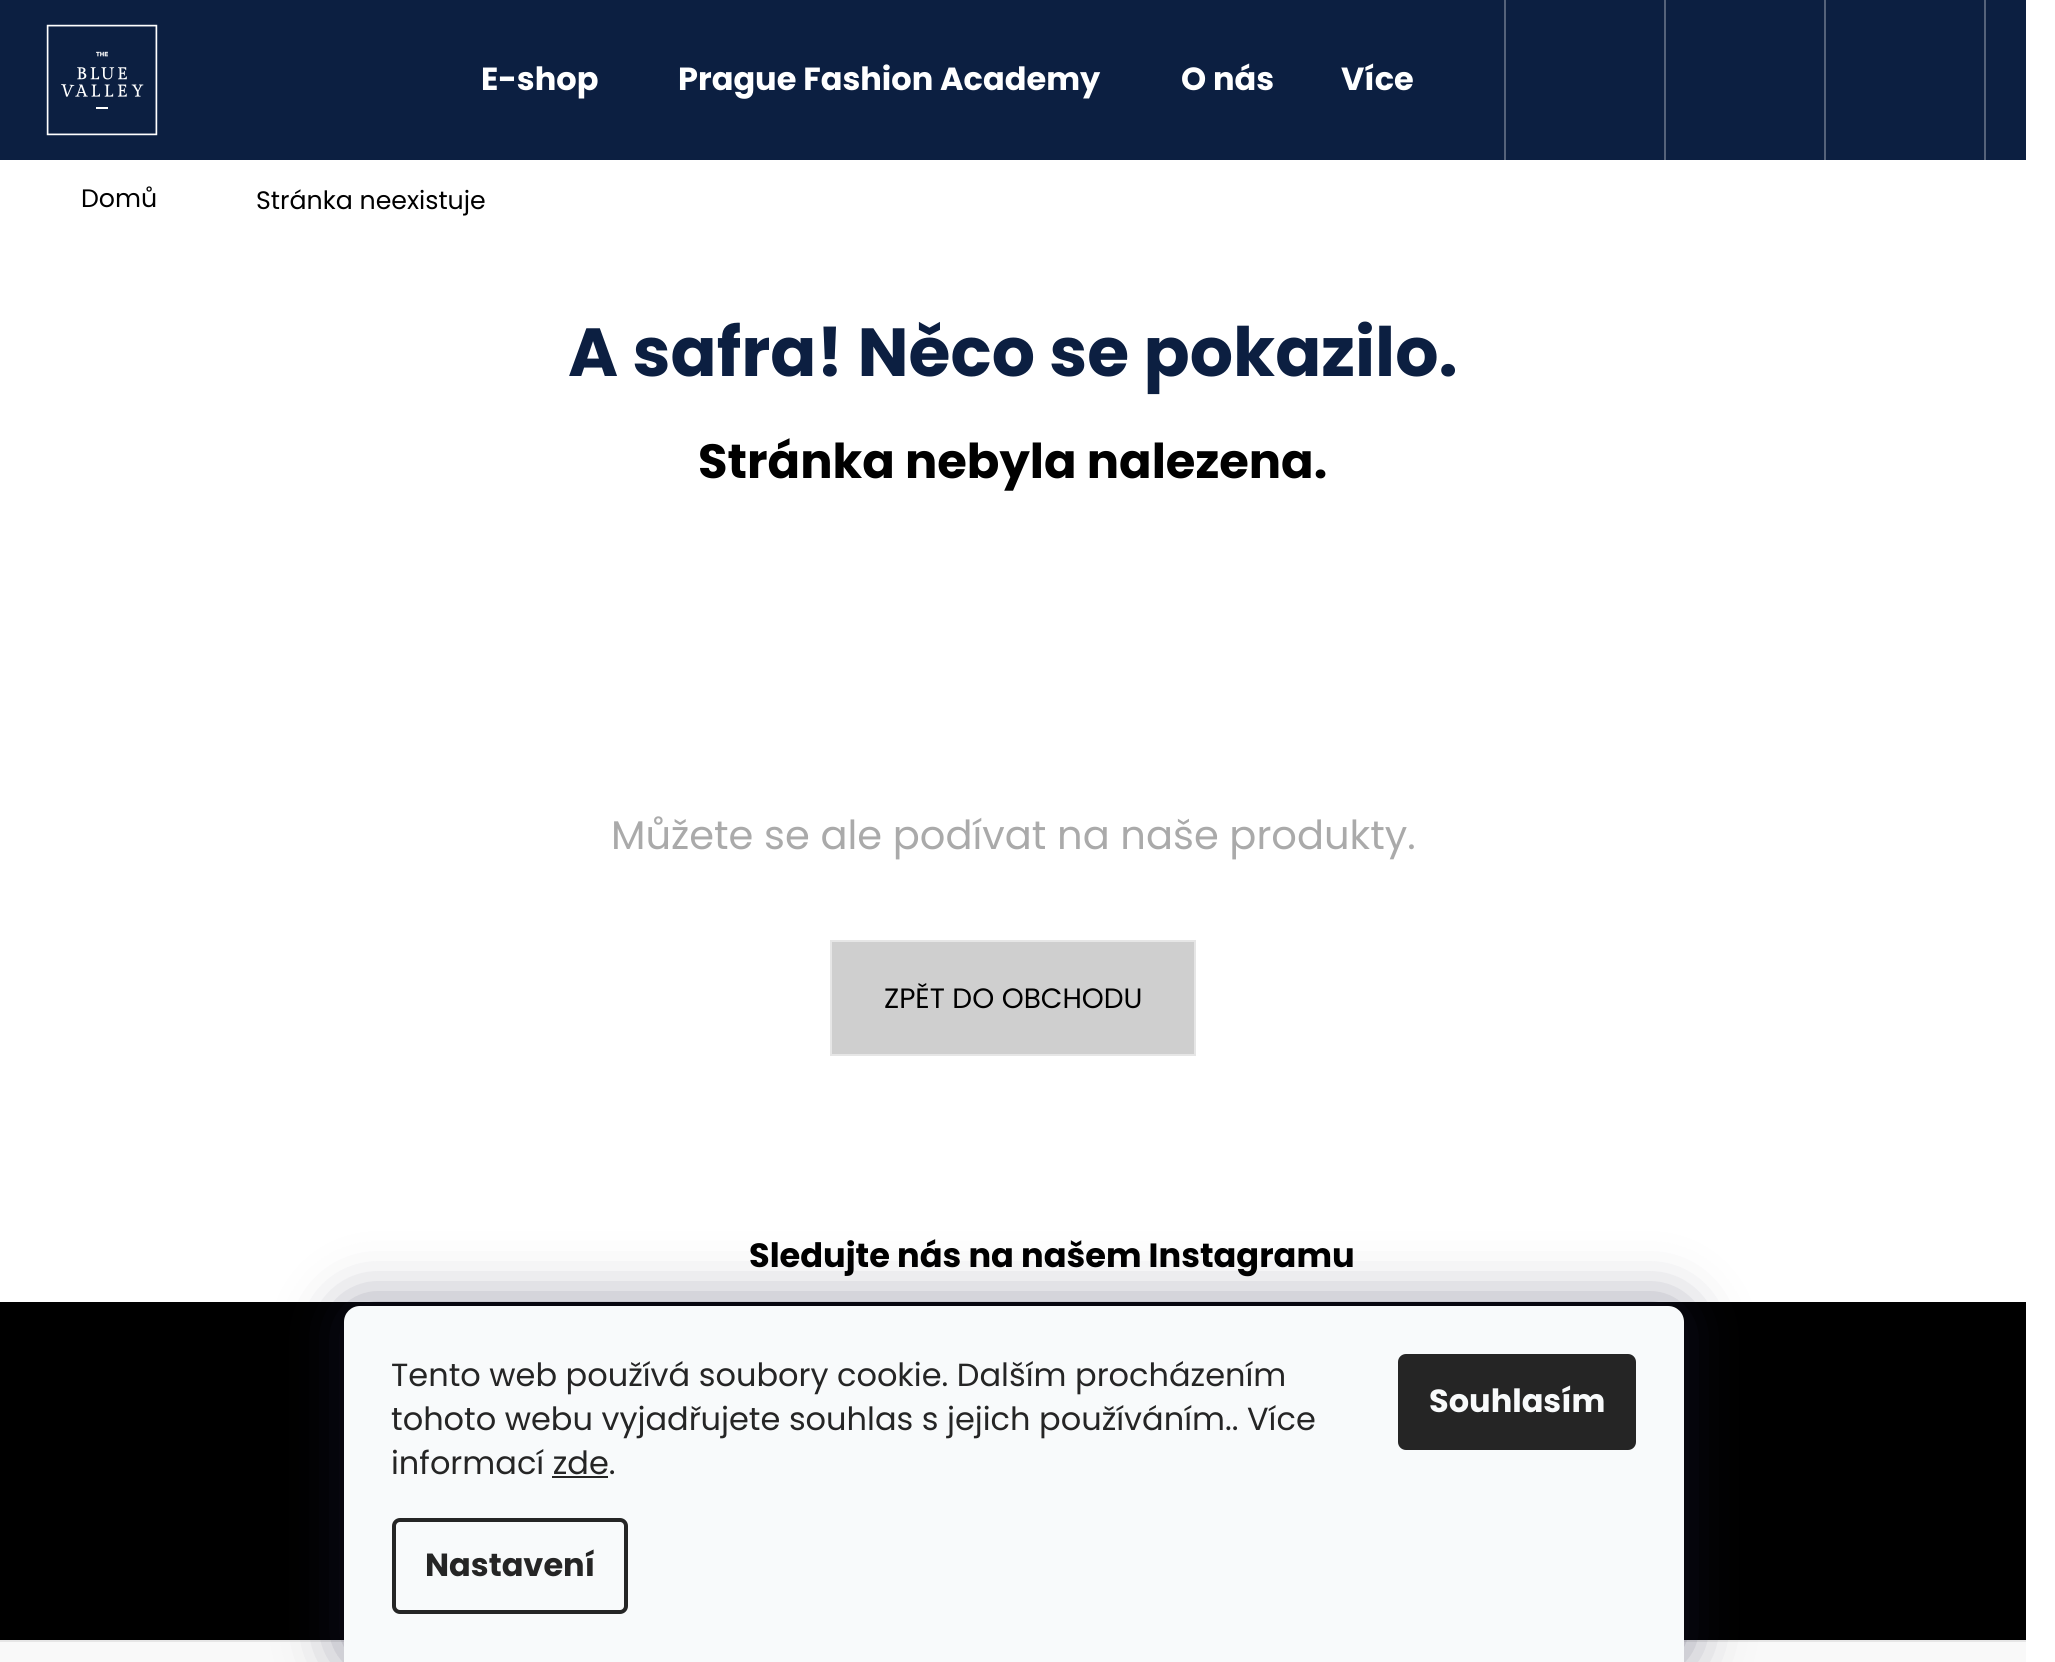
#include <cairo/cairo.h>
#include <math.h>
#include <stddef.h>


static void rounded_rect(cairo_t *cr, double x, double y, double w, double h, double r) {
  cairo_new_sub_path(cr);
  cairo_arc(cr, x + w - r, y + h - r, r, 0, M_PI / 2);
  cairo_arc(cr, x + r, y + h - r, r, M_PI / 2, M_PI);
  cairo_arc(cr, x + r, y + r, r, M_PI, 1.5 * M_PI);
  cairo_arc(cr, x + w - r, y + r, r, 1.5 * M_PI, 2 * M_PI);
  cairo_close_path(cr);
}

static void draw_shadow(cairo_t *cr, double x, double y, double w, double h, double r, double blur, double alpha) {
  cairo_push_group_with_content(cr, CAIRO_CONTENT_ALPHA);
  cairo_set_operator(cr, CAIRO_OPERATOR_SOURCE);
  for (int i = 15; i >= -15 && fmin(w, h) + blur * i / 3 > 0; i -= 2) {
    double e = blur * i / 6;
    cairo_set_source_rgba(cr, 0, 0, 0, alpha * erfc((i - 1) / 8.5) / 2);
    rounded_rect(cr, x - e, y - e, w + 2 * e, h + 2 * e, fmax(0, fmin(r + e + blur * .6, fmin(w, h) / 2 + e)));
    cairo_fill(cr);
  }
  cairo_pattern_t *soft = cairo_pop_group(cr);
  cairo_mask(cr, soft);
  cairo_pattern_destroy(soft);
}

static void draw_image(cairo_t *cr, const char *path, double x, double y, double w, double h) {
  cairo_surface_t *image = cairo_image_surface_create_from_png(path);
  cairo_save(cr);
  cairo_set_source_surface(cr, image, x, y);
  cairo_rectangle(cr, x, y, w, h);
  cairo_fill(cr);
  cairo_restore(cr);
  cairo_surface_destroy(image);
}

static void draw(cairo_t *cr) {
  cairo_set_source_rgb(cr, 1, 1, 1);
  cairo_paint(cr);
  cairo_set_source_rgb(cr, 12 / 255.0, 31 / 255.0, 65 / 255.0);
  cairo_rectangle(cr, 0, 0, 2026, 160);
  cairo_fill(cr);
  draw_image(cr, "images/1.png", 46, 24, 112, 112);
  cairo_set_source_rgb(cr, 85 / 255.0, 98 / 255.0, 122 / 255.0);
  cairo_rectangle(cr, 1984, 0, 2, 160);
  cairo_fill(cr);
  cairo_rectangle(cr, 1504, 0, 2, 160);
  cairo_fill(cr);
  cairo_rectangle(cr, 1664, 0, 2, 160);
  cairo_fill(cr);
  cairo_rectangle(cr, 1824, 0, 2, 160);
  cairo_fill(cr);
  cairo_set_source_rgb(cr, 207 / 255.0, 207 / 255.0, 207 / 255.0);
  cairo_rectangle(cr, 831, 941, 364, 114);
  cairo_fill_preserve(cr);
  cairo_set_source_rgb(cr, 230 / 255.0, 230 / 255.0, 230 / 255.0);
  cairo_stroke(cr);
  cairo_set_source_rgb(cr, 0, 0, 0);
  cairo_rectangle(cr, 0, 1302, 676, 338);
  cairo_fill(cr);
  cairo_rectangle(cr, 676, 1302, 674, 4);
  cairo_fill(cr);
  cairo_rectangle(cr, 1350, 1302, 676, 338);
  cairo_fill(cr);
  cairo_set_source_rgb(cr, 249 / 255.0, 249 / 255.0, 249 / 255.0);
  cairo_rectangle(cr, 0, 1642, 2026, 20);
  cairo_fill(cr);
  cairo_set_source_rgb(cr, 230 / 255.0, 230 / 255.0, 230 / 255.0);
  cairo_rectangle(cr, 0, 1640, 2026, 2);
  cairo_fill(cr);
  cairo_set_source_rgb(cr, 27 / 255.0, 25 / 255.0, 57 / 255.0);
  draw_shadow(cr, 344, 1306, 1340, 356, 16, 30, 0.5);
  cairo_set_source_rgb(cr, 248 / 255.0, 250 / 255.0, 251 / 255.0);
  cairo_new_path(cr);
  cairo_move_to(cr, 360, 1306);
  cairo_line_to(cr, 1668, 1306);
  cairo_curve_to(cr, 1677, 1306, 1684, 1313, 1684, 1322);
  cairo_line_to(cr, 1684, 1662);
  cairo_line_to(cr, 344, 1662);
  cairo_line_to(cr, 344, 1322);
  cairo_curve_to(cr, 344, 1313, 351, 1306, 360, 1306);
  cairo_close_path(cr);
  cairo_fill(cr);
  cairo_set_source_rgb(cr, 37 / 255.0, 37 / 255.0, 37 / 255.0);
  cairo_rectangle(cr, 552, 1476, 56, 2);
  cairo_fill(cr);
  rounded_rect(cr, 394, 1520, 232, 92, 6);
  cairo_set_line_width(cr, 4);
  cairo_stroke(cr);
  rounded_rect(cr, 1398, 1354, 238, 96, 8);
  cairo_fill(cr);
  cairo_select_font_face(cr, "Poppins", CAIRO_FONT_SLANT_NORMAL, CAIRO_FONT_WEIGHT_BOLD);
  cairo_set_font_size(cr, 32);
  cairo_set_source_rgb(cr, 1, 1, 1);
  cairo_move_to(cr, 481, 90);
  cairo_show_text(cr, "E-shop");
  cairo_move_to(cr, 678, 90);
  cairo_show_text(cr, "Prague Fashion Academy");
  cairo_move_to(cr, 1181, 90);
  cairo_show_text(cr, "O nás");
  cairo_move_to(cr, 1341, 90);
  cairo_show_text(cr, "Více");
  cairo_select_font_face(cr, "Poppins", CAIRO_FONT_SLANT_NORMAL, CAIRO_FONT_WEIGHT_NORMAL);
  cairo_set_font_size(cr, 25.25);
  cairo_set_source_rgb(cr, 0, 0, 0);
  cairo_move_to(cr, 81, 207);
  cairo_show_text(cr, "Domů");
  cairo_move_to(cr, 256, 209);
  cairo_show_text(cr, "Stránka neexistuje");
  cairo_select_font_face(cr, "Poppins", CAIRO_FONT_SLANT_NORMAL, CAIRO_FONT_WEIGHT_BOLD);
  cairo_set_font_size(cr, 68);
  cairo_set_source_rgb(cr, 12 / 255.0, 31 / 255.0, 65 / 255.0);
  cairo_move_to(cr, 568, 376);
  cairo_show_text(cr, "A safra! Něco se pokazilo.");
  cairo_set_font_size(cr, 48);
  cairo_set_source_rgb(cr, 0, 0, 0);
  cairo_move_to(cr, 698, 478);
  cairo_show_text(cr, "Stránka nebyla nalezena.");
  cairo_select_font_face(cr, "Poppins", CAIRO_FONT_SLANT_NORMAL, CAIRO_FONT_WEIGHT_NORMAL);
  cairo_set_font_size(cr, 40);
  cairo_set_source_rgb(cr, 170 / 255.0, 170 / 255.0, 170 / 255.0);
  cairo_move_to(cr, 611, 849);
  cairo_show_text(cr, "Můžete se ale podívat na naše produkty.");
  cairo_set_font_size(cr, 28);
  cairo_set_source_rgb(cr, 0, 0, 0);
  cairo_move_to(cr, 884, 1008);
  cairo_show_text(cr, "ZPĚT DO OBCHODU");
  cairo_select_font_face(cr, "Poppins", CAIRO_FONT_SLANT_NORMAL, CAIRO_FONT_WEIGHT_BOLD);
  cairo_set_font_size(cr, 33.6);
  cairo_move_to(cr, 749, 1267);
  cairo_show_text(cr, "Sledujte nás na našem Instagramu");
  cairo_select_font_face(cr, "Poppins", CAIRO_FONT_SLANT_NORMAL, CAIRO_FONT_WEIGHT_NORMAL);
  cairo_set_font_size(cr, 32);
  cairo_set_source_rgb(cr, 37 / 255.0, 37 / 255.0, 37 / 255.0);
  cairo_move_to(cr, 391, 1386);
  cairo_show_text(cr, "Tento web používá soubory cookie. Dalším procházením");
  cairo_move_to(cr, 391, 1430);
  cairo_show_text(cr, "tohoto webu vyjadřujete souhlas s jejich používáním.. Více");
  cairo_move_to(cr, 391, 1474);
  cairo_show_text(cr, "informací zde.");
  cairo_select_font_face(cr, "Poppins", CAIRO_FONT_SLANT_NORMAL, CAIRO_FONT_WEIGHT_BOLD);
  cairo_move_to(cr, 425, 1576);
  cairo_show_text(cr, "Nastavení");
  cairo_set_source_rgb(cr, 248 / 255.0, 250 / 255.0, 251 / 255.0);
  cairo_move_to(cr, 1429, 1412);
  cairo_show_text(cr, "Souhlasím");
}

int main(void) {
  cairo_surface_t *surface = cairo_image_surface_create(CAIRO_FORMAT_RGB24, 2055, 1662);
  cairo_t *cr = cairo_create(surface);
  cairo_font_options_t *options = cairo_font_options_create();
  cairo_font_options_set_hint_metrics(options, CAIRO_HINT_METRICS_OFF);
  cairo_font_options_set_hint_style(options, CAIRO_HINT_STYLE_NONE);
  cairo_set_font_options(cr, options);
  cairo_set_miter_limit(cr, 4);
  draw(cr);
  cairo_surface_write_to_png(surface, "out.png");
  cairo_font_options_destroy(options);
  cairo_destroy(cr);
  cairo_surface_destroy(surface);
  return 0;
}
